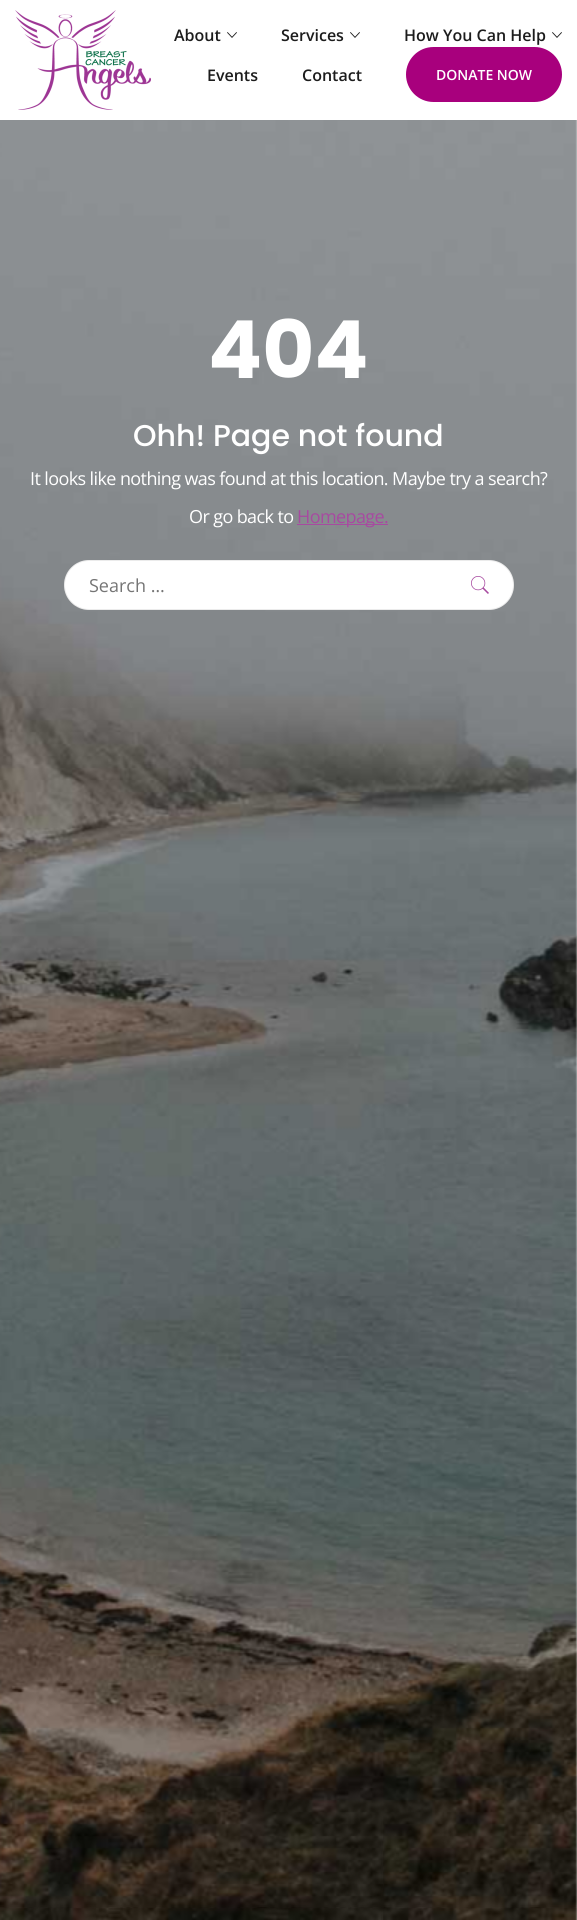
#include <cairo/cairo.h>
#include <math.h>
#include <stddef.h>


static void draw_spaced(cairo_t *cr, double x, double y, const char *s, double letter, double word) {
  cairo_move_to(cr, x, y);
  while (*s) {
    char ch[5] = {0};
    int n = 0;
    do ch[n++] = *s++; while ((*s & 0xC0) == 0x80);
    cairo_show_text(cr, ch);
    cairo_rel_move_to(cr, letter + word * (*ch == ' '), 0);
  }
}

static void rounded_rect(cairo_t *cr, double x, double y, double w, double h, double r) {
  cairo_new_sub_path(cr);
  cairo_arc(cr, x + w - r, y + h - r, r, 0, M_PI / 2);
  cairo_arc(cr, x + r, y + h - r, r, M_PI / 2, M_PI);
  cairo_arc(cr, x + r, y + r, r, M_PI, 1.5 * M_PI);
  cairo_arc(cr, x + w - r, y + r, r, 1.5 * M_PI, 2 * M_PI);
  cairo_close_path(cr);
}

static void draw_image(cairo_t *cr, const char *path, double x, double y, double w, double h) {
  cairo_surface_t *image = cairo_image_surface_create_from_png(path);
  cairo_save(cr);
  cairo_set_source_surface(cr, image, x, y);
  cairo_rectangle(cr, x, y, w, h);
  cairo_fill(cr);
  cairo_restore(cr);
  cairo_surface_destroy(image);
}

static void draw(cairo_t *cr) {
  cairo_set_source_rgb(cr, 1, 1, 1);
  cairo_paint(cr);
  draw_image(cr, "images/1.png", 0, 120, 577, 1800);
  draw_image(cr, "images/2.png", 15, 10, 136, 100);
  draw_image(cr, "images/3.png", 227, 32, 10, 6);
  draw_image(cr, "images/3.png", 350, 32, 10, 6);
  draw_image(cr, "images/3.png", 552, 32, 10, 6);
  cairo_set_source_rgb(cr, 168 / 255.0, 0, 125 / 255.0);
  rounded_rect(cr, 406, 47, 156, 55, 27.5);
  cairo_fill(cr);
  cairo_set_source_rgb(cr, 167 / 255.0, 74 / 255.0, 160 / 255.0);
  cairo_rectangle(cr, 297, 524, 91, 1);
  cairo_fill(cr);
  cairo_set_source_rgb(cr, 1, 1, 1);
  rounded_rect(cr, 64, 560, 450, 50, 25);
  cairo_fill(cr);
  rounded_rect(cr, 64.5, 560.5, 449, 49, 24.5);
  cairo_set_source_rgba(cr, 53 / 255.0, 53 / 255.0, 53 / 255.0, 0.1);
  cairo_set_line_width(cr, 1);
  cairo_stroke(cr);
  draw_image(cr, "images/4.png", 471, 576, 18, 18);
  cairo_select_font_face(cr, "Open Sans SemiBold", CAIRO_FONT_SLANT_NORMAL, CAIRO_FONT_WEIGHT_NORMAL);
  cairo_set_font_size(cr, 16);
  cairo_set_source_rgb(cr, 28 / 255.0, 28 / 255.0, 28 / 255.0);
  cairo_move_to(cr, 174, 41);
  cairo_show_text(cr, "About");
  cairo_move_to(cr, 281, 41);
  cairo_show_text(cr, "Services");
  cairo_move_to(cr, 404, 41);
  cairo_show_text(cr, "How You Can Help");
  cairo_move_to(cr, 207, 81);
  cairo_show_text(cr, "Events");
  cairo_move_to(cr, 302, 81);
  cairo_show_text(cr, "Contact");
  cairo_set_font_size(cr, 14);
  cairo_set_source_rgb(cr, 1, 1, 1);
  cairo_move_to(cr, 436, 80);
  cairo_show_text(cr, "DONATE NOW");
  cairo_select_font_face(cr, "Poppins", CAIRO_FONT_SLANT_NORMAL, CAIRO_FONT_WEIGHT_BOLD);
  cairo_set_font_size(cr, 80);
  cairo_move_to(cr, 208, 378);
  cairo_show_text(cr, "404");
  cairo_select_font_face(cr, "Poppins Medium", CAIRO_FONT_SLANT_NORMAL, CAIRO_FONT_WEIGHT_NORMAL);
  cairo_set_font_size(cr, 30);
  cairo_move_to(cr, 133, 446);
  cairo_show_text(cr, "Ohh! Page not found");
  cairo_select_font_face(cr, "Open Sans", CAIRO_FONT_SLANT_NORMAL, CAIRO_FONT_WEIGHT_NORMAL);
  cairo_set_font_size(cr, 18);
  draw_spaced(cr, 30, 485, "It looks like nothing was found at this location. Maybe try a search?", -0.6, 0);
  draw_spaced(cr, 189, 523, "Or go back to", -0.6, 0);
  cairo_set_source_rgb(cr, 167 / 255.0, 74 / 255.0, 160 / 255.0);
  draw_spaced(cr, 297, 523, "Homepage.", -0.6, 0);
  cairo_set_source_rgb(cr, 117 / 255.0, 117 / 255.0, 117 / 255.0);
  cairo_move_to(cr, 89, 592);
  cairo_show_text(cr, "Search …");
}

int main(void) {
  cairo_surface_t *surface = cairo_image_surface_create(CAIRO_FORMAT_RGB24, 577, 1920);
  cairo_t *cr = cairo_create(surface);
  cairo_font_options_t *options = cairo_font_options_create();
  cairo_font_options_set_hint_metrics(options, CAIRO_HINT_METRICS_OFF);
  cairo_font_options_set_hint_style(options, CAIRO_HINT_STYLE_NONE);
  cairo_set_font_options(cr, options);
  cairo_set_miter_limit(cr, 4);
  draw(cr);
  cairo_surface_write_to_png(surface, "out.png");
  cairo_font_options_destroy(options);
  cairo_destroy(cr);
  cairo_surface_destroy(surface);
  return 0;
}
